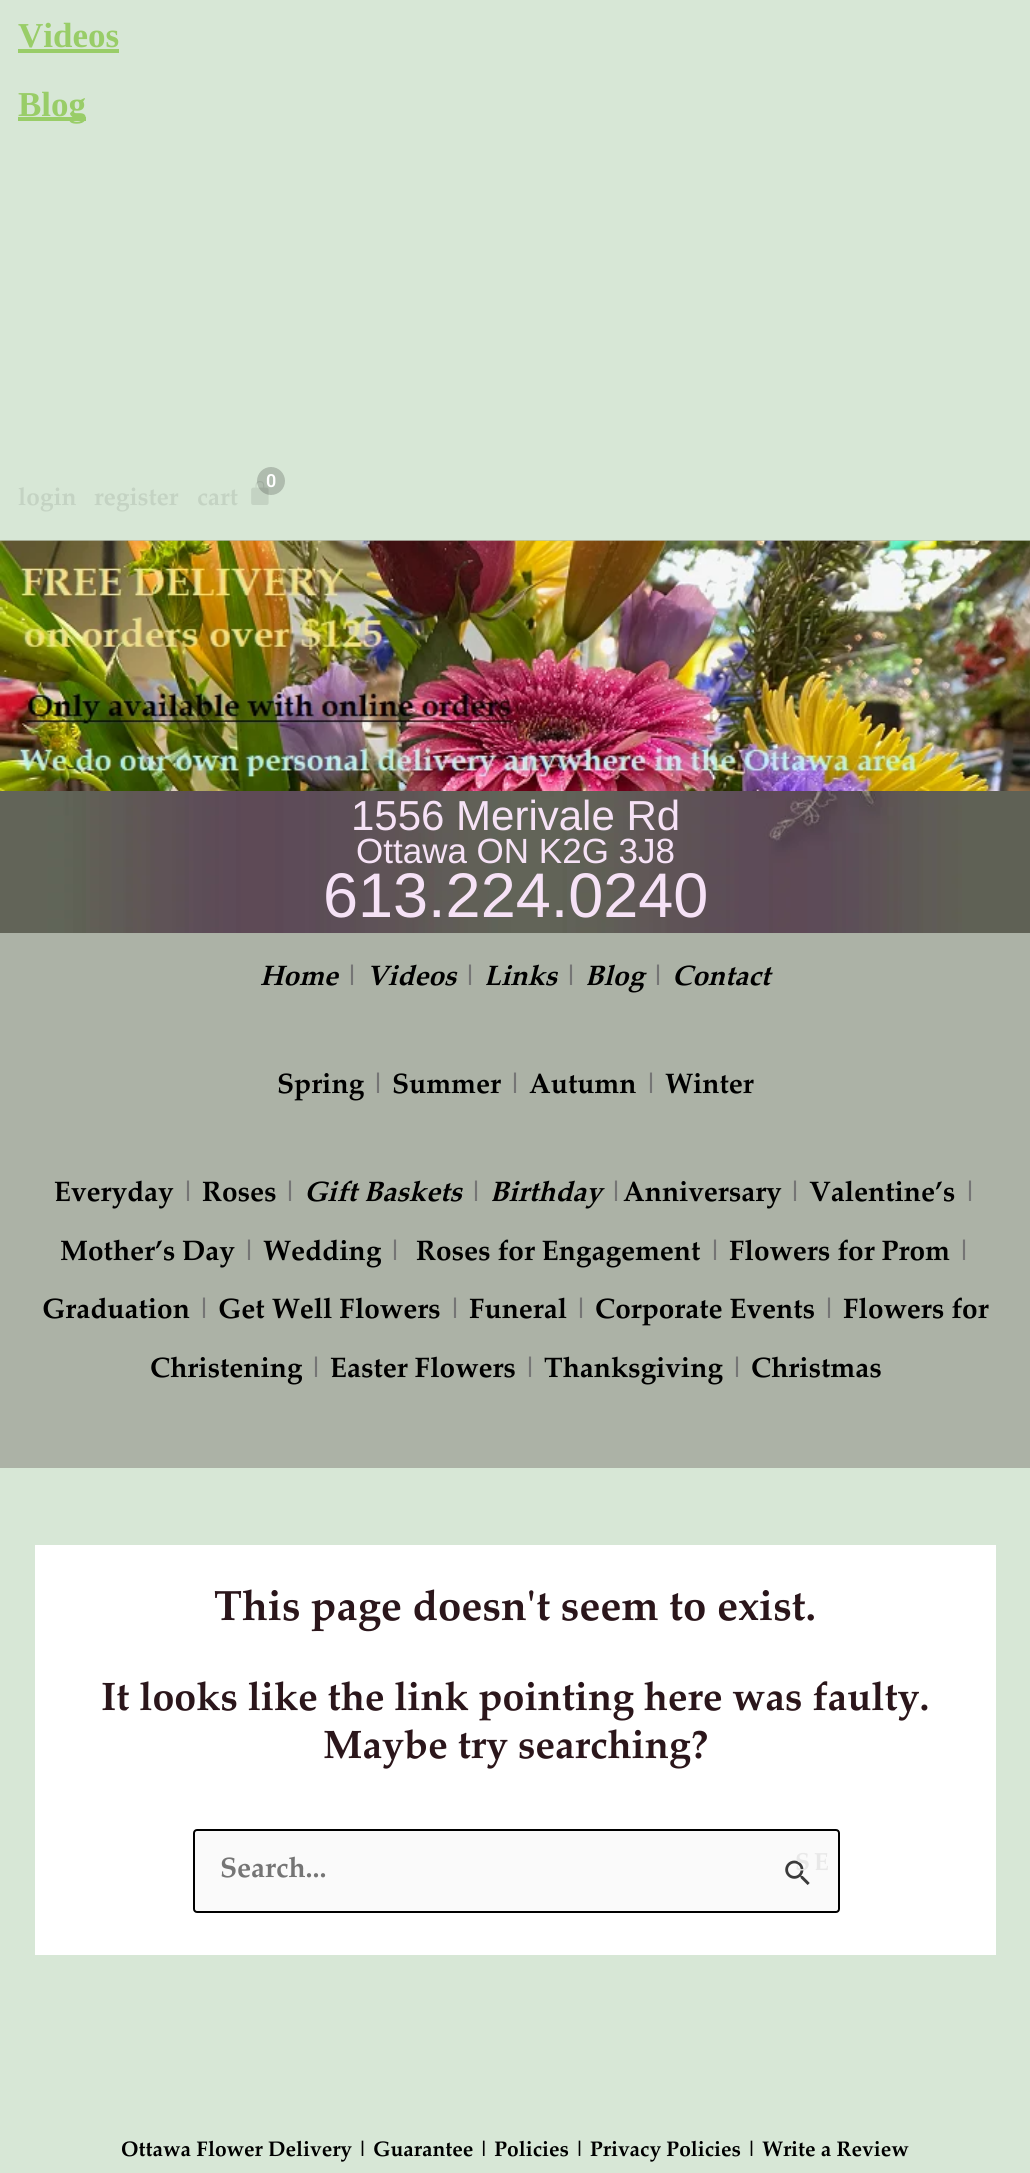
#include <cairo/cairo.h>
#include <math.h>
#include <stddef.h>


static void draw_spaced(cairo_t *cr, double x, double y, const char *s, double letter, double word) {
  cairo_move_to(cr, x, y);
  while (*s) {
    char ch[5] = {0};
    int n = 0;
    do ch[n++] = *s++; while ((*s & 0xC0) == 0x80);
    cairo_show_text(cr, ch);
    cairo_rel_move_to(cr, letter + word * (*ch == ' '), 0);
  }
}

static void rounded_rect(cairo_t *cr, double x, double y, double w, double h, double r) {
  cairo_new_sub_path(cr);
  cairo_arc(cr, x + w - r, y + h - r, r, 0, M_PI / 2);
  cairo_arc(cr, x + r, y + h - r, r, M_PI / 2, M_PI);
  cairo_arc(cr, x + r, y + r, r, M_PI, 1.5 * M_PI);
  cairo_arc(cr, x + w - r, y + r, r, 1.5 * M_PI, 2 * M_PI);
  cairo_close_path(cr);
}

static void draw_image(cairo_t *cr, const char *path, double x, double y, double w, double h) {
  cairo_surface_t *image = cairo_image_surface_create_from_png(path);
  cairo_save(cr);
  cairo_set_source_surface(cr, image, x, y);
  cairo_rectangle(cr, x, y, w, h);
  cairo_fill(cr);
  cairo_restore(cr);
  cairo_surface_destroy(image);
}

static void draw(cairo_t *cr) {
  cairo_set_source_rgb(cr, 215 / 255.0, 231 / 255.0, 214 / 255.0);
  cairo_paint(cr);
  cairo_set_source_rgb(cr, 153 / 255.0, 205 / 255.0, 104 / 255.0);
  cairo_rectangle(cr, 18, 49, 101, 4);
  cairo_fill(cr);
  cairo_rectangle(cr, 18, 117, 68, 4);
  cairo_fill(cr);
  draw_image(cr, "images/1.png", 251, 481, 18, 24);
  cairo_set_source_rgba(cr, 0, 0, 0, 0.19);
  cairo_arc(cr, 271, 481, 14, 0, 2 * M_PI);
  cairo_fill(cr);
  draw_image(cr, "images/2.png", 0, 540, 1030, 393);
  draw_image(cr, "images/3.png", 0, 540, 1030, 251);
  cairo_set_source_rgb(cr, 172 / 255.0, 178 / 255.0, 166 / 255.0);
  cairo_rectangle(cr, 0, 933, 1030, 535);
  cairo_fill(cr);
  cairo_set_source_rgb(cr, 1, 1, 1);
  cairo_rectangle(cr, 35, 1545, 961, 410);
  cairo_fill(cr);
  cairo_set_source_rgb(cr, 250 / 255.0, 250 / 255.0, 250 / 255.0);
  rounded_rect(cr, 194, 1830, 645, 82, 3);
  cairo_fill_preserve(cr);
  cairo_set_source_rgb(cr, 0, 0, 0);
  cairo_stroke(cr);
  draw_image(cr, "images/4.png", 785, 1860, 25, 25);
  cairo_select_font_face(cr, "Liberation Serif", CAIRO_FONT_SLANT_NORMAL, CAIRO_FONT_WEIGHT_BOLD);
  cairo_set_font_size(cr, 35);
  cairo_set_source_rgb(cr, 153 / 255.0, 205 / 255.0, 104 / 255.0);
  cairo_move_to(cr, 18, 47);
  cairo_show_text(cr, "Videos");
  cairo_move_to(cr, 18, 116);
  cairo_show_text(cr, "Blog");
  cairo_select_font_face(cr, "Roboto SemiBold", CAIRO_FONT_SLANT_NORMAL, CAIRO_FONT_WEIGHT_NORMAL);
  cairo_set_font_size(cr, 18);
  cairo_set_source_rgb(cr, 1, 1, 1);
  cairo_move_to(cr, 266, 487);
  cairo_show_text(cr, "0");
  cairo_select_font_face(cr, "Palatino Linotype", CAIRO_FONT_SLANT_NORMAL, CAIRO_FONT_WEIGHT_BOLD);
  cairo_set_font_size(cr, 24.5);
  cairo_set_source_rgb(cr, 196 / 255.0, 211 / 255.0, 195 / 255.0);
  cairo_move_to(cr, 18, 505);
  cairo_show_text(cr, "login");
  cairo_move_to(cr, 94, 505);
  cairo_show_text(cr, "register");
  cairo_move_to(cr, 197, 505);
  cairo_show_text(cr, "cart");
  cairo_select_font_face(cr, "Liberation Sans", CAIRO_FONT_SLANT_NORMAL, CAIRO_FONT_WEIGHT_NORMAL);
  cairo_set_font_size(cr, 42);
  cairo_set_source_rgb(cr, 246 / 255.0, 226 / 255.0, 246 / 255.0);
  cairo_move_to(cr, 351, 830);
  cairo_show_text(cr, "1556 Merivale Rd");
  cairo_set_font_size(cr, 35);
  cairo_move_to(cr, 356, 863);
  cairo_show_text(cr, "Ottawa ON K2G 3J8");
  cairo_set_font_size(cr, 63);
  cairo_move_to(cr, 323, 917);
  cairo_show_text(cr, "613.224.0240");
  cairo_select_font_face(cr, "Palatino Linotype", CAIRO_FONT_SLANT_ITALIC, CAIRO_FONT_WEIGHT_BOLD);
  cairo_set_font_size(cr, 28);
  cairo_set_source_rgb(cr, 0, 0, 0);
  cairo_move_to(cr, 260, 985);
  cairo_show_text(cr, "Home");
  cairo_select_font_face(cr, "Palatino Linotype", CAIRO_FONT_SLANT_NORMAL, CAIRO_FONT_WEIGHT_BOLD);
  cairo_set_source_rgb(cr, 117 / 255.0, 117 / 255.0, 117 / 255.0);
  cairo_move_to(cr, 345, 985);
  cairo_show_text(cr, "|");
  cairo_select_font_face(cr, "Palatino Linotype", CAIRO_FONT_SLANT_ITALIC, CAIRO_FONT_WEIGHT_BOLD);
  cairo_set_source_rgb(cr, 0, 0, 0);
  cairo_move_to(cr, 366, 985);
  cairo_show_text(cr, "Videos");
  cairo_select_font_face(cr, "Palatino Linotype", CAIRO_FONT_SLANT_NORMAL, CAIRO_FONT_WEIGHT_BOLD);
  cairo_set_source_rgb(cr, 117 / 255.0, 117 / 255.0, 117 / 255.0);
  cairo_move_to(cr, 463, 985);
  cairo_show_text(cr, "|");
  cairo_select_font_face(cr, "Palatino Linotype", CAIRO_FONT_SLANT_ITALIC, CAIRO_FONT_WEIGHT_BOLD);
  cairo_set_source_rgb(cr, 0, 0, 0);
  cairo_move_to(cr, 484, 985);
  cairo_show_text(cr, "Links");
  cairo_select_font_face(cr, "Palatino Linotype", CAIRO_FONT_SLANT_NORMAL, CAIRO_FONT_WEIGHT_BOLD);
  cairo_set_source_rgb(cr, 117 / 255.0, 117 / 255.0, 117 / 255.0);
  cairo_move_to(cr, 564, 985);
  cairo_show_text(cr, "|");
  cairo_select_font_face(cr, "Palatino Linotype", CAIRO_FONT_SLANT_ITALIC, CAIRO_FONT_WEIGHT_BOLD);
  cairo_set_source_rgb(cr, 0, 0, 0);
  cairo_move_to(cr, 585, 985);
  cairo_show_text(cr, "Blog");
  cairo_select_font_face(cr, "Palatino Linotype", CAIRO_FONT_SLANT_NORMAL, CAIRO_FONT_WEIGHT_BOLD);
  cairo_set_source_rgb(cr, 117 / 255.0, 117 / 255.0, 117 / 255.0);
  cairo_move_to(cr, 651, 985);
  cairo_show_text(cr, "|");
  cairo_select_font_face(cr, "Palatino Linotype", CAIRO_FONT_SLANT_ITALIC, CAIRO_FONT_WEIGHT_BOLD);
  cairo_set_source_rgb(cr, 0, 0, 0);
  cairo_move_to(cr, 672, 985);
  cairo_show_text(cr, "Contact");
  cairo_select_font_face(cr, "Palatino Linotype", CAIRO_FONT_SLANT_NORMAL, CAIRO_FONT_WEIGHT_BOLD);
  cairo_move_to(cr, 277, 1093);
  cairo_show_text(cr, "Spring");
  cairo_set_source_rgb(cr, 117 / 255.0, 117 / 255.0, 117 / 255.0);
  cairo_move_to(cr, 371, 1093);
  cairo_show_text(cr, "|");
  cairo_set_source_rgb(cr, 0, 0, 0);
  cairo_move_to(cr, 392, 1093);
  cairo_show_text(cr, "Summer");
  cairo_set_source_rgb(cr, 117 / 255.0, 117 / 255.0, 117 / 255.0);
  cairo_move_to(cr, 508, 1093);
  cairo_show_text(cr, "|");
  cairo_set_source_rgb(cr, 0, 0, 0);
  cairo_move_to(cr, 529, 1093);
  cairo_show_text(cr, "Autumn");
  cairo_set_source_rgb(cr, 117 / 255.0, 117 / 255.0, 117 / 255.0);
  cairo_move_to(cr, 644, 1093);
  cairo_show_text(cr, "|");
  cairo_set_source_rgb(cr, 0, 0, 0);
  cairo_move_to(cr, 665, 1093);
  cairo_show_text(cr, "Winter");
  cairo_move_to(cr, 54, 1201);
  cairo_show_text(cr, "Everyday");
  cairo_set_source_rgb(cr, 117 / 255.0, 117 / 255.0, 117 / 255.0);
  cairo_move_to(cr, 181, 1201);
  cairo_show_text(cr, "|");
  cairo_set_source_rgb(cr, 0, 0, 0);
  cairo_move_to(cr, 202, 1201);
  cairo_show_text(cr, "Roses");
  cairo_set_source_rgb(cr, 117 / 255.0, 117 / 255.0, 117 / 255.0);
  cairo_move_to(cr, 283, 1201);
  cairo_show_text(cr, "|");
  cairo_select_font_face(cr, "Palatino Linotype", CAIRO_FONT_SLANT_ITALIC, CAIRO_FONT_WEIGHT_BOLD);
  cairo_set_source_rgb(cr, 0, 0, 0);
  cairo_move_to(cr, 304, 1201);
  cairo_show_text(cr, "Gift Baskets");
  cairo_select_font_face(cr, "Palatino Linotype", CAIRO_FONT_SLANT_NORMAL, CAIRO_FONT_WEIGHT_BOLD);
  cairo_set_source_rgb(cr, 117 / 255.0, 117 / 255.0, 117 / 255.0);
  cairo_move_to(cr, 469, 1201);
  cairo_show_text(cr, "|");
  cairo_select_font_face(cr, "Palatino Linotype", CAIRO_FONT_SLANT_ITALIC, CAIRO_FONT_WEIGHT_BOLD);
  cairo_set_source_rgb(cr, 0, 0, 0);
  cairo_move_to(cr, 490, 1201);
  cairo_show_text(cr, "Birthday");
  cairo_select_font_face(cr, "Palatino Linotype", CAIRO_FONT_SLANT_NORMAL, CAIRO_FONT_WEIGHT_BOLD);
  cairo_set_source_rgb(cr, 117 / 255.0, 117 / 255.0, 117 / 255.0);
  cairo_move_to(cr, 609, 1201);
  cairo_show_text(cr, "|");
  cairo_set_source_rgb(cr, 0, 0, 0);
  cairo_move_to(cr, 623, 1201);
  cairo_show_text(cr, "Anniversary");
  cairo_set_source_rgb(cr, 117 / 255.0, 117 / 255.0, 117 / 255.0);
  cairo_move_to(cr, 788, 1201);
  cairo_show_text(cr, "|");
  cairo_set_source_rgb(cr, 0, 0, 0);
  cairo_move_to(cr, 809, 1201);
  cairo_show_text(cr, "Valentine’s");
  cairo_set_source_rgb(cr, 117 / 255.0, 117 / 255.0, 117 / 255.0);
  cairo_move_to(cr, 963, 1201);
  cairo_show_text(cr, "|");
  cairo_set_source_rgb(cr, 0, 0, 0);
  cairo_move_to(cr, 60, 1260);
  cairo_show_text(cr, "Mother’s Day");
  cairo_set_source_rgb(cr, 117 / 255.0, 117 / 255.0, 117 / 255.0);
  cairo_move_to(cr, 242, 1260);
  cairo_show_text(cr, "|");
  cairo_set_source_rgb(cr, 0, 0, 0);
  cairo_move_to(cr, 263, 1260);
  cairo_show_text(cr, "Wedding");
  cairo_set_source_rgb(cr, 117 / 255.0, 117 / 255.0, 117 / 255.0);
  cairo_move_to(cr, 388, 1260);
  cairo_show_text(cr, "|");
  cairo_set_source_rgb(cr, 0, 0, 0);
  cairo_move_to(cr, 416, 1260);
  cairo_show_text(cr, "Roses for Engagement");
  cairo_set_source_rgb(cr, 117 / 255.0, 117 / 255.0, 117 / 255.0);
  cairo_move_to(cr, 708, 1260);
  cairo_show_text(cr, "|");
  cairo_set_source_rgb(cr, 0, 0, 0);
  cairo_move_to(cr, 729, 1260);
  cairo_show_text(cr, "Flowers for Prom");
  cairo_set_source_rgb(cr, 117 / 255.0, 117 / 255.0, 117 / 255.0);
  cairo_move_to(cr, 957, 1260);
  cairo_show_text(cr, "|");
  cairo_set_source_rgb(cr, 0, 0, 0);
  cairo_move_to(cr, 42, 1318);
  cairo_show_text(cr, "Graduation");
  cairo_set_source_rgb(cr, 117 / 255.0, 117 / 255.0, 117 / 255.0);
  cairo_move_to(cr, 197, 1318);
  cairo_show_text(cr, "|");
  cairo_set_source_rgb(cr, 0, 0, 0);
  cairo_move_to(cr, 218, 1318);
  cairo_show_text(cr, "Get Well Flowers");
  cairo_set_source_rgb(cr, 117 / 255.0, 117 / 255.0, 117 / 255.0);
  cairo_move_to(cr, 448, 1318);
  cairo_show_text(cr, "|");
  cairo_set_source_rgb(cr, 0, 0, 0);
  cairo_move_to(cr, 469, 1318);
  cairo_show_text(cr, "Funeral");
  cairo_set_source_rgb(cr, 117 / 255.0, 117 / 255.0, 117 / 255.0);
  cairo_move_to(cr, 574, 1318);
  cairo_show_text(cr, "|");
  cairo_set_source_rgb(cr, 0, 0, 0);
  cairo_move_to(cr, 595, 1318);
  cairo_show_text(cr, "Corporate Events");
  cairo_set_source_rgb(cr, 117 / 255.0, 117 / 255.0, 117 / 255.0);
  cairo_move_to(cr, 822, 1318);
  cairo_show_text(cr, "|");
  cairo_set_source_rgb(cr, 0, 0, 0);
  cairo_move_to(cr, 843, 1318);
  cairo_show_text(cr, "Flowers for");
  cairo_move_to(cr, 150, 1377);
  cairo_show_text(cr, "Christening");
  cairo_set_source_rgb(cr, 117 / 255.0, 117 / 255.0, 117 / 255.0);
  cairo_move_to(cr, 309, 1377);
  cairo_show_text(cr, "|");
  cairo_set_source_rgb(cr, 0, 0, 0);
  cairo_move_to(cr, 330, 1377);
  cairo_show_text(cr, "Easter Flowers");
  cairo_set_source_rgb(cr, 117 / 255.0, 117 / 255.0, 117 / 255.0);
  cairo_move_to(cr, 523, 1377);
  cairo_show_text(cr, "|");
  cairo_set_source_rgb(cr, 0, 0, 0);
  cairo_move_to(cr, 544, 1377);
  cairo_show_text(cr, "Thanksgiving");
  cairo_set_source_rgb(cr, 117 / 255.0, 117 / 255.0, 117 / 255.0);
  cairo_move_to(cr, 730, 1377);
  cairo_show_text(cr, "|");
  cairo_set_source_rgb(cr, 0, 0, 0);
  cairo_move_to(cr, 751, 1377);
  cairo_show_text(cr, "Christmas");
  cairo_set_font_size(cr, 42);
  cairo_set_source_rgb(cr, 43 / 255.0, 22 / 255.0, 27 / 255.0);
  cairo_move_to(cr, 214, 1620);
  cairo_show_text(cr, "This page doesn't seem to exist.");
  cairo_set_font_size(cr, 39.4);
  cairo_move_to(cr, 101, 1710);
  cairo_show_text(cr, "It looks like the link pointing here was faulty.");
  cairo_move_to(cr, 323, 1758);
  cairo_show_text(cr, "Maybe try searching?");
  cairo_set_font_size(cr, 28);
  cairo_set_source_rgb(cr, 117 / 255.0, 117 / 255.0, 117 / 255.0);
  cairo_move_to(cr, 220, 1877);
  cairo_show_text(cr, "Search...");
  cairo_set_font_size(cr, 24.5);
  cairo_set_source_rgb(cr, 232 / 255.0, 232 / 255.0, 232 / 255.0);
  draw_spaced(cr, 795, 1870, "SE", 4, 0);
  cairo_set_font_size(cr, 21);
  cairo_set_source_rgb(cr, 0, 0, 0);
  cairo_move_to(cr, 121, 2156);
  cairo_show_text(cr, "Ottawa Flower Delivery | Guarantee | Policies | Privacy Policies | Write a Review");
}

int main(void) {
  cairo_surface_t *surface = cairo_image_surface_create(CAIRO_FORMAT_RGB24, 1030, 2173);
  cairo_t *cr = cairo_create(surface);
  cairo_font_options_t *options = cairo_font_options_create();
  cairo_font_options_set_hint_metrics(options, CAIRO_HINT_METRICS_OFF);
  cairo_font_options_set_hint_style(options, CAIRO_HINT_STYLE_NONE);
  cairo_set_font_options(cr, options);
  cairo_set_miter_limit(cr, 4);
  draw(cr);
  cairo_surface_write_to_png(surface, "out.png");
  cairo_font_options_destroy(options);
  cairo_destroy(cr);
  cairo_surface_destroy(surface);
  return 0;
}
